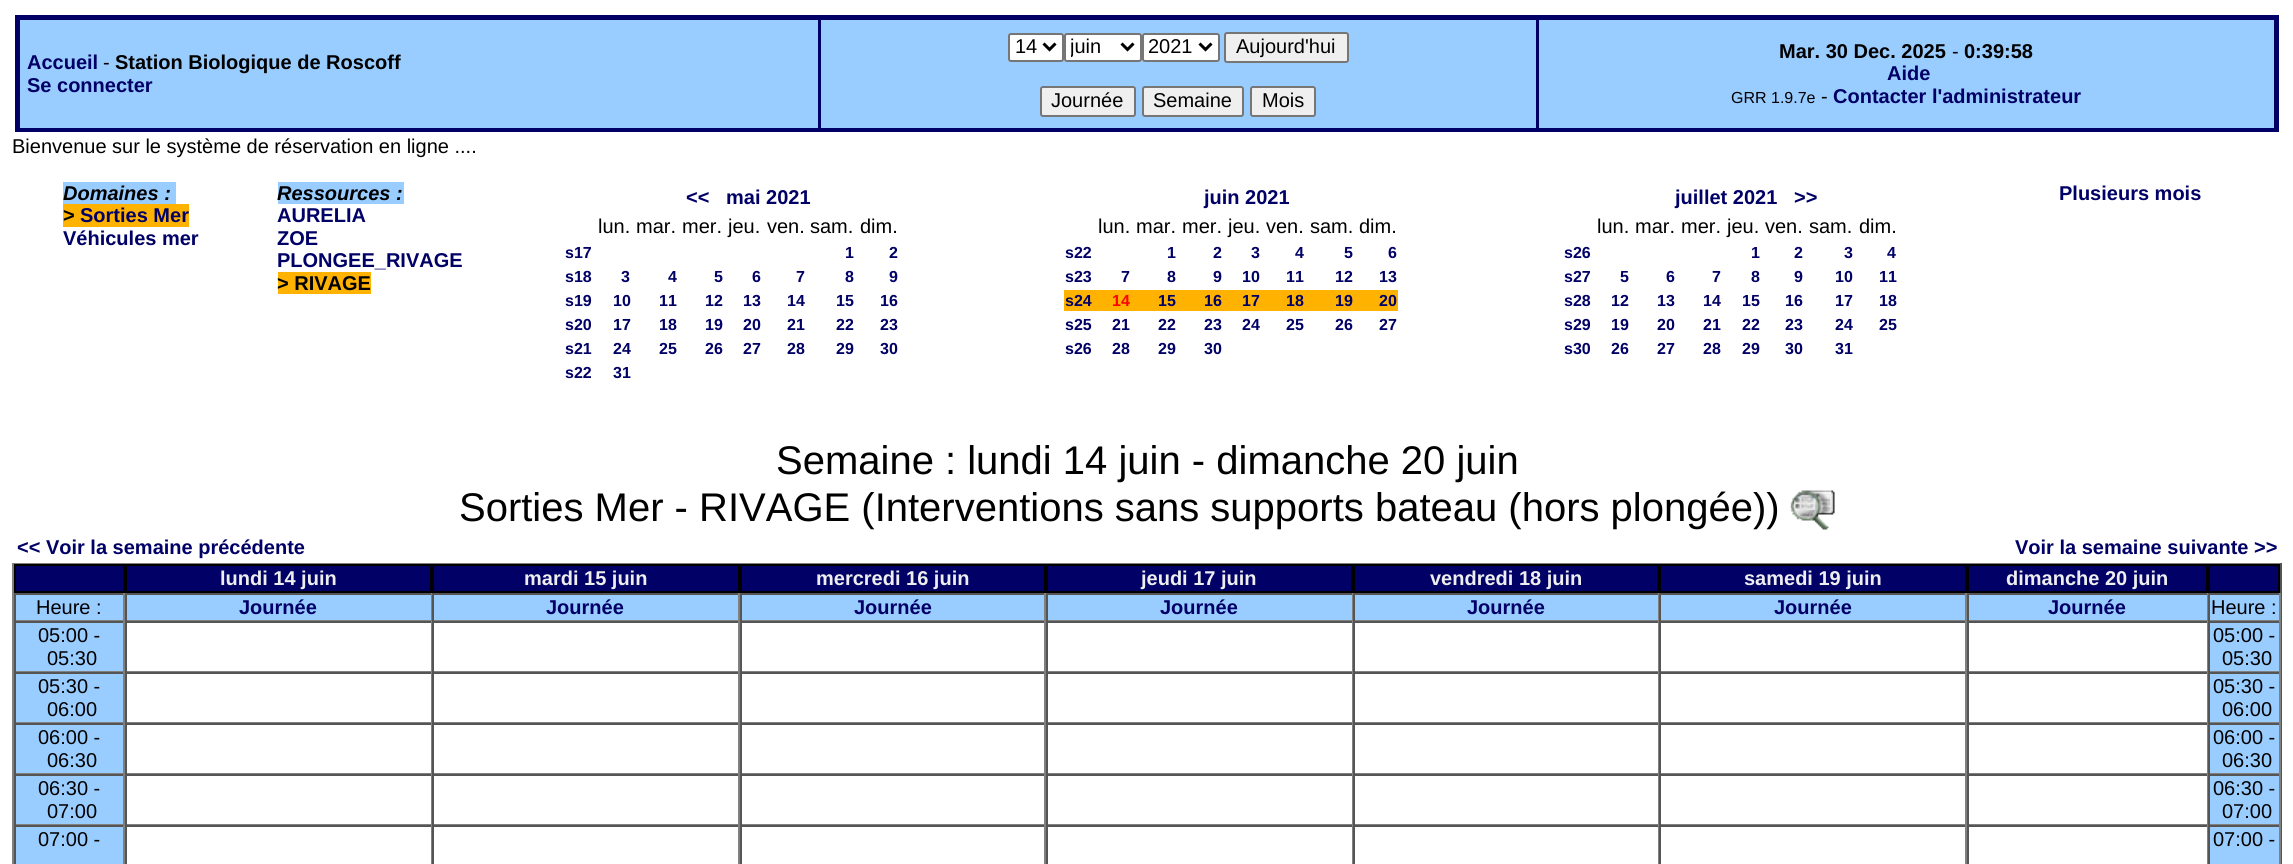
#include <cairo/cairo.h>
#include <math.h>
#include <stddef.h>


static void rounded_rect(cairo_t *cr, double x, double y, double w, double h, double r) {
  cairo_new_sub_path(cr);
  cairo_arc(cr, x + w - r, y + h - r, r, 0, M_PI / 2);
  cairo_arc(cr, x + r, y + h - r, r, M_PI / 2, M_PI);
  cairo_arc(cr, x + r, y + r, r, M_PI, 1.5 * M_PI);
  cairo_arc(cr, x + w - r, y + r, r, 1.5 * M_PI, 2 * M_PI);
  cairo_close_path(cr);
}

static void draw_image(cairo_t *cr, const char *path, double x, double y, double w, double h) {
  cairo_surface_t *image = cairo_image_surface_create_from_png(path);
  cairo_save(cr);
  cairo_set_source_surface(cr, image, x, y);
  cairo_rectangle(cr, x, y, w, h);
  cairo_fill(cr);
  cairo_restore(cr);
  cairo_surface_destroy(image);
}

static void draw(cairo_t *cr) {
  cairo_set_source_rgb(cr, 1, 1, 1);
  cairo_paint(cr);
  cairo_set_source_rgb(cr, 0, 0, 102 / 255.0);
  cairo_rectangle(cr, 15, 15, 2264, 117);
  cairo_fill(cr);
  cairo_set_source_rgb(cr, 153 / 255.0, 204 / 255.0, 1);
  cairo_rectangle(cr, 20, 20, 798, 108);
  cairo_fill(cr);
  cairo_rectangle(cr, 821, 20, 715, 108);
  cairo_fill(cr);
  cairo_set_source_rgb(cr, 1, 1, 1);
  rounded_rect(cr, 1009, 34, 54, 27, 2);
  cairo_fill_preserve(cr);
  cairo_set_source_rgb(cr, 118 / 255.0, 118 / 255.0, 118 / 255.0);
  cairo_stroke(cr);
  cairo_new_path(cr);
  cairo_move_to(cr, 1043.5, 43.5);
  cairo_line_to(cr, 1049.5, 49.5);
  cairo_line_to(cr, 1055.5, 43.5);
  cairo_set_source_rgb(cr, 0, 0, 0);
  cairo_set_line_width(cr, 3);
  cairo_stroke(cr);
  cairo_set_source_rgb(cr, 1, 1, 1);
  rounded_rect(cr, 1065, 34, 76, 27, 2);
  cairo_fill_preserve(cr);
  cairo_set_source_rgb(cr, 118 / 255.0, 118 / 255.0, 118 / 255.0);
  cairo_set_line_width(cr, 2);
  cairo_stroke(cr);
  cairo_new_path(cr);
  cairo_move_to(cr, 1121.5, 43.5);
  cairo_line_to(cr, 1127.5, 49.5);
  cairo_line_to(cr, 1133.5, 43.5);
  cairo_set_source_rgb(cr, 0, 0, 0);
  cairo_set_line_width(cr, 3);
  cairo_stroke(cr);
  cairo_set_source_rgb(cr, 1, 1, 1);
  rounded_rect(cr, 1143, 34, 76, 27, 2);
  cairo_fill_preserve(cr);
  cairo_set_source_rgb(cr, 118 / 255.0, 118 / 255.0, 118 / 255.0);
  cairo_set_line_width(cr, 2);
  cairo_stroke(cr);
  cairo_new_path(cr);
  cairo_move_to(cr, 1199.5, 43.5);
  cairo_line_to(cr, 1205.5, 49.5);
  cairo_line_to(cr, 1211.5, 43.5);
  cairo_set_source_rgb(cr, 0, 0, 0);
  cairo_set_line_width(cr, 3);
  cairo_stroke(cr);
  cairo_set_source_rgb(cr, 239 / 255.0, 239 / 255.0, 239 / 255.0);
  rounded_rect(cr, 1225, 33, 123, 29, 2);
  cairo_fill_preserve(cr);
  cairo_set_source_rgb(cr, 118 / 255.0, 118 / 255.0, 118 / 255.0);
  cairo_set_line_width(cr, 2);
  cairo_stroke(cr);
  cairo_set_source_rgb(cr, 239 / 255.0, 239 / 255.0, 239 / 255.0);
  rounded_rect(cr, 1041, 87, 94, 29, 2);
  cairo_fill_preserve(cr);
  cairo_set_source_rgb(cr, 118 / 255.0, 118 / 255.0, 118 / 255.0);
  cairo_stroke(cr);
  cairo_set_source_rgb(cr, 239 / 255.0, 239 / 255.0, 239 / 255.0);
  rounded_rect(cr, 1143, 87, 100, 29, 2);
  cairo_fill_preserve(cr);
  cairo_set_source_rgb(cr, 118 / 255.0, 118 / 255.0, 118 / 255.0);
  cairo_stroke(cr);
  cairo_set_source_rgb(cr, 239 / 255.0, 239 / 255.0, 239 / 255.0);
  rounded_rect(cr, 1251, 87, 64, 29, 2);
  cairo_fill_preserve(cr);
  cairo_set_source_rgb(cr, 118 / 255.0, 118 / 255.0, 118 / 255.0);
  cairo_stroke(cr);
  cairo_set_source_rgb(cr, 153 / 255.0, 204 / 255.0, 1);
  cairo_rectangle(cr, 1539, 20, 735, 108);
  cairo_fill(cr);
  cairo_rectangle(cr, 63, 182, 113, 22);
  cairo_fill(cr);
  cairo_set_source_rgb(cr, 1, 178 / 255.0, 0);
  cairo_rectangle(cr, 63, 204, 126, 23);
  cairo_fill(cr);
  cairo_set_source_rgb(cr, 153 / 255.0, 204 / 255.0, 1);
  cairo_rectangle(cr, 278, 182, 126, 22);
  cairo_fill(cr);
  cairo_set_source_rgb(cr, 1, 178 / 255.0, 0);
  cairo_rectangle(cr, 278, 272, 93, 22);
  cairo_fill(cr);
  cairo_rectangle(cr, 1064, 290, 334, 21);
  cairo_fill(cr);
  draw_image(cr, "images/1.png", 1790, 490, 45, 40);
  cairo_set_source_rgb(cr, 128 / 255.0, 128 / 255.0, 128 / 255.0);
  cairo_rectangle(cr, 12, 563, 2270, 1);
  cairo_fill(cr);
  cairo_set_source_rgb(cr, 85 / 255.0, 85 / 255.0, 85 / 255.0);
  cairo_rectangle(cr, 2280, 563, 2, 301);
  cairo_fill(cr);
  cairo_set_source_rgb(cr, 128 / 255.0, 128 / 255.0, 128 / 255.0);
  cairo_rectangle(cr, 12, 563, 2, 301);
  cairo_fill(cr);
  cairo_set_source_rgb(cr, 0, 0, 102 / 255.0);
  cairo_rectangle(cr, 15, 565, 109, 27);
  cairo_fill_preserve(cr);
  cairo_set_source_rgb(cr, 0, 0, 0);
  cairo_stroke(cr);
  cairo_set_source_rgb(cr, 0, 0, 102 / 255.0);
  cairo_rectangle(cr, 126, 565, 305, 27);
  cairo_fill_preserve(cr);
  cairo_set_source_rgb(cr, 0, 0, 0);
  cairo_stroke(cr);
  cairo_set_source_rgb(cr, 0, 0, 102 / 255.0);
  cairo_rectangle(cr, 433, 565, 306, 27);
  cairo_fill_preserve(cr);
  cairo_set_source_rgb(cr, 0, 0, 0);
  cairo_stroke(cr);
  cairo_set_source_rgb(cr, 0, 0, 102 / 255.0);
  cairo_rectangle(cr, 741, 565, 304, 27);
  cairo_fill_preserve(cr);
  cairo_set_source_rgb(cr, 0, 0, 0);
  cairo_stroke(cr);
  cairo_set_source_rgb(cr, 0, 0, 102 / 255.0);
  cairo_rectangle(cr, 1047, 565, 305, 27);
  cairo_fill_preserve(cr);
  cairo_set_source_rgb(cr, 0, 0, 0);
  cairo_stroke(cr);
  cairo_set_source_rgb(cr, 0, 0, 102 / 255.0);
  cairo_rectangle(cr, 1354, 565, 304, 27);
  cairo_fill_preserve(cr);
  cairo_set_source_rgb(cr, 0, 0, 0);
  cairo_stroke(cr);
  cairo_set_source_rgb(cr, 0, 0, 102 / 255.0);
  cairo_rectangle(cr, 1660, 565, 306, 27);
  cairo_fill_preserve(cr);
  cairo_set_source_rgb(cr, 0, 0, 0);
  cairo_stroke(cr);
  cairo_set_source_rgb(cr, 0, 0, 102 / 255.0);
  cairo_rectangle(cr, 1968, 565, 239, 27);
  cairo_fill_preserve(cr);
  cairo_set_source_rgb(cr, 0, 0, 0);
  cairo_stroke(cr);
  cairo_set_source_rgb(cr, 0, 0, 102 / 255.0);
  cairo_rectangle(cr, 2209, 565, 70, 27);
  cairo_fill_preserve(cr);
  cairo_set_source_rgb(cr, 0, 0, 0);
  cairo_stroke(cr);
  cairo_set_source_rgb(cr, 153 / 255.0, 204 / 255.0, 1);
  cairo_rectangle(cr, 16, 595, 107, 25);
  cairo_fill(cr);
  cairo_set_source_rgb(cr, 85 / 255.0, 85 / 255.0, 85 / 255.0);
  cairo_rectangle(cr, 14, 593, 2266, 2);
  cairo_fill(cr);
  cairo_set_source_rgb(cr, 128 / 255.0, 128 / 255.0, 128 / 255.0);
  cairo_rectangle(cr, 123, 593, 2, 28);
  cairo_fill(cr);
  cairo_rectangle(cr, 14, 620, 111, 1);
  cairo_fill(cr);
  cairo_set_source_rgb(cr, 85 / 255.0, 85 / 255.0, 85 / 255.0);
  cairo_rectangle(cr, 14, 593, 2, 28);
  cairo_fill(cr);
  cairo_set_source_rgb(cr, 153 / 255.0, 204 / 255.0, 1);
  cairo_rectangle(cr, 127, 595, 304, 25);
  cairo_fill(cr);
  cairo_set_source_rgb(cr, 128 / 255.0, 128 / 255.0, 128 / 255.0);
  cairo_rectangle(cr, 431, 593, 1, 28);
  cairo_fill(cr);
  cairo_rectangle(cr, 125, 620, 307, 1);
  cairo_fill(cr);
  cairo_set_source_rgb(cr, 85 / 255.0, 85 / 255.0, 85 / 255.0);
  cairo_rectangle(cr, 125, 593, 2, 28);
  cairo_fill(cr);
  cairo_set_source_rgb(cr, 153 / 255.0, 204 / 255.0, 1);
  cairo_rectangle(cr, 434, 595, 304, 25);
  cairo_fill(cr);
  cairo_set_source_rgb(cr, 128 / 255.0, 128 / 255.0, 128 / 255.0);
  cairo_rectangle(cr, 738, 593, 2, 28);
  cairo_fill(cr);
  cairo_rectangle(cr, 432, 620, 308, 1);
  cairo_fill(cr);
  cairo_set_source_rgb(cr, 85 / 255.0, 85 / 255.0, 85 / 255.0);
  cairo_rectangle(cr, 432, 593, 2, 28);
  cairo_fill(cr);
  cairo_set_source_rgb(cr, 153 / 255.0, 204 / 255.0, 1);
  cairo_rectangle(cr, 742, 595, 302, 25);
  cairo_fill(cr);
  cairo_set_source_rgb(cr, 128 / 255.0, 128 / 255.0, 128 / 255.0);
  cairo_rectangle(cr, 1044, 593, 2, 28);
  cairo_fill(cr);
  cairo_rectangle(cr, 740, 620, 306, 1);
  cairo_fill(cr);
  cairo_set_source_rgb(cr, 85 / 255.0, 85 / 255.0, 85 / 255.0);
  cairo_rectangle(cr, 740, 593, 2, 28);
  cairo_fill(cr);
  cairo_set_source_rgb(cr, 153 / 255.0, 204 / 255.0, 1);
  cairo_rectangle(cr, 1048, 595, 304, 25);
  cairo_fill(cr);
  cairo_set_source_rgb(cr, 128 / 255.0, 128 / 255.0, 128 / 255.0);
  cairo_rectangle(cr, 1352, 593, 1, 28);
  cairo_fill(cr);
  cairo_rectangle(cr, 1046, 620, 307, 1);
  cairo_fill(cr);
  cairo_set_source_rgb(cr, 85 / 255.0, 85 / 255.0, 85 / 255.0);
  cairo_rectangle(cr, 1046, 593, 2, 28);
  cairo_fill(cr);
  cairo_set_source_rgb(cr, 153 / 255.0, 204 / 255.0, 1);
  cairo_rectangle(cr, 1355, 595, 303, 25);
  cairo_fill(cr);
  cairo_set_source_rgb(cr, 128 / 255.0, 128 / 255.0, 128 / 255.0);
  cairo_rectangle(cr, 1658, 593, 1, 28);
  cairo_fill(cr);
  cairo_rectangle(cr, 1353, 620, 306, 1);
  cairo_fill(cr);
  cairo_set_source_rgb(cr, 85 / 255.0, 85 / 255.0, 85 / 255.0);
  cairo_rectangle(cr, 1353, 593, 2, 28);
  cairo_fill(cr);
  cairo_set_source_rgb(cr, 153 / 255.0, 204 / 255.0, 1);
  cairo_rectangle(cr, 1661, 595, 304, 25);
  cairo_fill(cr);
  cairo_set_source_rgb(cr, 128 / 255.0, 128 / 255.0, 128 / 255.0);
  cairo_rectangle(cr, 1965, 593, 2, 28);
  cairo_fill(cr);
  cairo_rectangle(cr, 1659, 620, 308, 1);
  cairo_fill(cr);
  cairo_set_source_rgb(cr, 85 / 255.0, 85 / 255.0, 85 / 255.0);
  cairo_rectangle(cr, 1659, 593, 2, 28);
  cairo_fill(cr);
  cairo_set_source_rgb(cr, 153 / 255.0, 204 / 255.0, 1);
  cairo_rectangle(cr, 1969, 595, 238, 25);
  cairo_fill(cr);
  cairo_set_source_rgb(cr, 128 / 255.0, 128 / 255.0, 128 / 255.0);
  cairo_rectangle(cr, 2207, 593, 1, 28);
  cairo_fill(cr);
  cairo_rectangle(cr, 1967, 620, 241, 1);
  cairo_fill(cr);
  cairo_set_source_rgb(cr, 85 / 255.0, 85 / 255.0, 85 / 255.0);
  cairo_rectangle(cr, 1967, 593, 2, 28);
  cairo_fill(cr);
  cairo_set_source_rgb(cr, 153 / 255.0, 204 / 255.0, 1);
  cairo_rectangle(cr, 2210, 595, 69, 25);
  cairo_fill(cr);
  cairo_set_source_rgb(cr, 128 / 255.0, 128 / 255.0, 128 / 255.0);
  cairo_rectangle(cr, 2279, 593, 2, 28);
  cairo_fill(cr);
  cairo_rectangle(cr, 2208, 620, 72, 1);
  cairo_fill(cr);
  cairo_set_source_rgb(cr, 85 / 255.0, 85 / 255.0, 85 / 255.0);
  cairo_rectangle(cr, 2208, 593, 2, 28);
  cairo_fill(cr);
  cairo_set_source_rgb(cr, 153 / 255.0, 204 / 255.0, 1);
  cairo_rectangle(cr, 16, 623, 107, 48);
  cairo_fill(cr);
  cairo_set_source_rgb(cr, 85 / 255.0, 85 / 255.0, 85 / 255.0);
  cairo_rectangle(cr, 14, 621, 2266, 2);
  cairo_fill(cr);
  cairo_set_source_rgb(cr, 128 / 255.0, 128 / 255.0, 128 / 255.0);
  cairo_rectangle(cr, 123, 621, 2, 51);
  cairo_fill(cr);
  cairo_rectangle(cr, 14, 671, 111, 1);
  cairo_fill(cr);
  cairo_set_source_rgb(cr, 85 / 255.0, 85 / 255.0, 85 / 255.0);
  cairo_rectangle(cr, 14, 621, 2, 51);
  cairo_fill(cr);
  cairo_set_source_rgb(cr, 128 / 255.0, 128 / 255.0, 128 / 255.0);
  cairo_rectangle(cr, 431, 621, 1, 51);
  cairo_fill(cr);
  cairo_rectangle(cr, 125, 671, 307, 1);
  cairo_fill(cr);
  cairo_set_source_rgb(cr, 85 / 255.0, 85 / 255.0, 85 / 255.0);
  cairo_rectangle(cr, 125, 621, 2, 51);
  cairo_fill(cr);
  cairo_set_source_rgb(cr, 128 / 255.0, 128 / 255.0, 128 / 255.0);
  cairo_rectangle(cr, 738, 621, 2, 51);
  cairo_fill(cr);
  cairo_rectangle(cr, 432, 671, 308, 1);
  cairo_fill(cr);
  cairo_set_source_rgb(cr, 85 / 255.0, 85 / 255.0, 85 / 255.0);
  cairo_rectangle(cr, 432, 621, 2, 51);
  cairo_fill(cr);
  cairo_set_source_rgb(cr, 128 / 255.0, 128 / 255.0, 128 / 255.0);
  cairo_rectangle(cr, 1044, 621, 2, 51);
  cairo_fill(cr);
  cairo_rectangle(cr, 740, 671, 306, 1);
  cairo_fill(cr);
  cairo_set_source_rgb(cr, 85 / 255.0, 85 / 255.0, 85 / 255.0);
  cairo_rectangle(cr, 740, 621, 2, 51);
  cairo_fill(cr);
  cairo_set_source_rgb(cr, 128 / 255.0, 128 / 255.0, 128 / 255.0);
  cairo_rectangle(cr, 1352, 621, 1, 51);
  cairo_fill(cr);
  cairo_rectangle(cr, 1046, 671, 307, 1);
  cairo_fill(cr);
  cairo_set_source_rgb(cr, 85 / 255.0, 85 / 255.0, 85 / 255.0);
  cairo_rectangle(cr, 1046, 621, 2, 51);
  cairo_fill(cr);
  cairo_set_source_rgb(cr, 128 / 255.0, 128 / 255.0, 128 / 255.0);
  cairo_rectangle(cr, 1658, 621, 1, 51);
  cairo_fill(cr);
  cairo_rectangle(cr, 1353, 671, 306, 1);
  cairo_fill(cr);
  cairo_set_source_rgb(cr, 85 / 255.0, 85 / 255.0, 85 / 255.0);
  cairo_rectangle(cr, 1353, 621, 2, 51);
  cairo_fill(cr);
  cairo_set_source_rgb(cr, 128 / 255.0, 128 / 255.0, 128 / 255.0);
  cairo_rectangle(cr, 1965, 621, 2, 51);
  cairo_fill(cr);
  cairo_rectangle(cr, 1659, 671, 308, 1);
  cairo_fill(cr);
  cairo_set_source_rgb(cr, 85 / 255.0, 85 / 255.0, 85 / 255.0);
  cairo_rectangle(cr, 1659, 621, 2, 51);
  cairo_fill(cr);
  cairo_set_source_rgb(cr, 128 / 255.0, 128 / 255.0, 128 / 255.0);
  cairo_rectangle(cr, 2207, 621, 1, 51);
  cairo_fill(cr);
  cairo_rectangle(cr, 1967, 671, 241, 1);
  cairo_fill(cr);
  cairo_set_source_rgb(cr, 85 / 255.0, 85 / 255.0, 85 / 255.0);
  cairo_rectangle(cr, 1967, 621, 2, 51);
  cairo_fill(cr);
  cairo_set_source_rgb(cr, 153 / 255.0, 204 / 255.0, 1);
  cairo_rectangle(cr, 2210, 623, 69, 48);
  cairo_fill(cr);
  cairo_set_source_rgb(cr, 128 / 255.0, 128 / 255.0, 128 / 255.0);
  cairo_rectangle(cr, 2279, 621, 2, 51);
  cairo_fill(cr);
  cairo_rectangle(cr, 2208, 671, 72, 1);
  cairo_fill(cr);
  cairo_set_source_rgb(cr, 85 / 255.0, 85 / 255.0, 85 / 255.0);
  cairo_rectangle(cr, 2208, 621, 2, 51);
  cairo_fill(cr);
  cairo_set_source_rgb(cr, 153 / 255.0, 204 / 255.0, 1);
  cairo_rectangle(cr, 16, 674, 107, 48);
  cairo_fill(cr);
  cairo_set_source_rgb(cr, 85 / 255.0, 85 / 255.0, 85 / 255.0);
  cairo_rectangle(cr, 14, 672, 2266, 2);
  cairo_fill(cr);
  cairo_set_source_rgb(cr, 128 / 255.0, 128 / 255.0, 128 / 255.0);
  cairo_rectangle(cr, 123, 672, 2, 51);
  cairo_fill(cr);
  cairo_rectangle(cr, 14, 722, 111, 1);
  cairo_fill(cr);
  cairo_set_source_rgb(cr, 85 / 255.0, 85 / 255.0, 85 / 255.0);
  cairo_rectangle(cr, 14, 672, 2, 51);
  cairo_fill(cr);
  cairo_set_source_rgb(cr, 128 / 255.0, 128 / 255.0, 128 / 255.0);
  cairo_rectangle(cr, 431, 672, 1, 51);
  cairo_fill(cr);
  cairo_rectangle(cr, 125, 722, 307, 1);
  cairo_fill(cr);
  cairo_set_source_rgb(cr, 85 / 255.0, 85 / 255.0, 85 / 255.0);
  cairo_rectangle(cr, 125, 672, 2, 51);
  cairo_fill(cr);
  cairo_set_source_rgb(cr, 128 / 255.0, 128 / 255.0, 128 / 255.0);
  cairo_rectangle(cr, 738, 672, 2, 51);
  cairo_fill(cr);
  cairo_rectangle(cr, 432, 722, 308, 1);
  cairo_fill(cr);
  cairo_set_source_rgb(cr, 85 / 255.0, 85 / 255.0, 85 / 255.0);
  cairo_rectangle(cr, 432, 672, 2, 51);
  cairo_fill(cr);
  cairo_set_source_rgb(cr, 128 / 255.0, 128 / 255.0, 128 / 255.0);
  cairo_rectangle(cr, 1044, 672, 2, 51);
  cairo_fill(cr);
  cairo_rectangle(cr, 740, 722, 306, 1);
  cairo_fill(cr);
  cairo_set_source_rgb(cr, 85 / 255.0, 85 / 255.0, 85 / 255.0);
  cairo_rectangle(cr, 740, 672, 2, 51);
  cairo_fill(cr);
  cairo_set_source_rgb(cr, 128 / 255.0, 128 / 255.0, 128 / 255.0);
  cairo_rectangle(cr, 1352, 672, 1, 51);
  cairo_fill(cr);
  cairo_rectangle(cr, 1046, 722, 307, 1);
  cairo_fill(cr);
  cairo_set_source_rgb(cr, 85 / 255.0, 85 / 255.0, 85 / 255.0);
  cairo_rectangle(cr, 1046, 672, 2, 51);
  cairo_fill(cr);
  cairo_set_source_rgb(cr, 128 / 255.0, 128 / 255.0, 128 / 255.0);
  cairo_rectangle(cr, 1658, 672, 1, 51);
  cairo_fill(cr);
  cairo_rectangle(cr, 1353, 722, 306, 1);
  cairo_fill(cr);
  cairo_set_source_rgb(cr, 85 / 255.0, 85 / 255.0, 85 / 255.0);
  cairo_rectangle(cr, 1353, 672, 2, 51);
  cairo_fill(cr);
  cairo_set_source_rgb(cr, 128 / 255.0, 128 / 255.0, 128 / 255.0);
  cairo_rectangle(cr, 1965, 672, 2, 51);
  cairo_fill(cr);
  cairo_rectangle(cr, 1659, 722, 308, 1);
  cairo_fill(cr);
  cairo_set_source_rgb(cr, 85 / 255.0, 85 / 255.0, 85 / 255.0);
  cairo_rectangle(cr, 1659, 672, 2, 51);
  cairo_fill(cr);
  cairo_set_source_rgb(cr, 128 / 255.0, 128 / 255.0, 128 / 255.0);
  cairo_rectangle(cr, 2207, 672, 1, 51);
  cairo_fill(cr);
  cairo_rectangle(cr, 1967, 722, 241, 1);
  cairo_fill(cr);
  cairo_set_source_rgb(cr, 85 / 255.0, 85 / 255.0, 85 / 255.0);
  cairo_rectangle(cr, 1967, 672, 2, 51);
  cairo_fill(cr);
  cairo_set_source_rgb(cr, 153 / 255.0, 204 / 255.0, 1);
  cairo_rectangle(cr, 2210, 674, 69, 48);
  cairo_fill(cr);
  cairo_set_source_rgb(cr, 128 / 255.0, 128 / 255.0, 128 / 255.0);
  cairo_rectangle(cr, 2279, 672, 2, 51);
  cairo_fill(cr);
  cairo_rectangle(cr, 2208, 722, 72, 1);
  cairo_fill(cr);
  cairo_set_source_rgb(cr, 85 / 255.0, 85 / 255.0, 85 / 255.0);
  cairo_rectangle(cr, 2208, 672, 2, 51);
  cairo_fill(cr);
  cairo_set_source_rgb(cr, 153 / 255.0, 204 / 255.0, 1);
  cairo_rectangle(cr, 16, 725, 107, 48);
  cairo_fill(cr);
  cairo_set_source_rgb(cr, 85 / 255.0, 85 / 255.0, 85 / 255.0);
  cairo_rectangle(cr, 14, 723, 2266, 2);
  cairo_fill(cr);
  cairo_set_source_rgb(cr, 128 / 255.0, 128 / 255.0, 128 / 255.0);
  cairo_rectangle(cr, 123, 723, 2, 51);
  cairo_fill(cr);
  cairo_rectangle(cr, 14, 773, 111, 1);
  cairo_fill(cr);
  cairo_set_source_rgb(cr, 85 / 255.0, 85 / 255.0, 85 / 255.0);
  cairo_rectangle(cr, 14, 723, 2, 51);
  cairo_fill(cr);
  cairo_set_source_rgb(cr, 128 / 255.0, 128 / 255.0, 128 / 255.0);
  cairo_rectangle(cr, 431, 723, 1, 51);
  cairo_fill(cr);
  cairo_rectangle(cr, 125, 773, 307, 1);
  cairo_fill(cr);
  cairo_set_source_rgb(cr, 85 / 255.0, 85 / 255.0, 85 / 255.0);
  cairo_rectangle(cr, 125, 723, 2, 51);
  cairo_fill(cr);
  cairo_set_source_rgb(cr, 128 / 255.0, 128 / 255.0, 128 / 255.0);
  cairo_rectangle(cr, 738, 723, 2, 51);
  cairo_fill(cr);
  cairo_rectangle(cr, 432, 773, 308, 1);
  cairo_fill(cr);
  cairo_set_source_rgb(cr, 85 / 255.0, 85 / 255.0, 85 / 255.0);
  cairo_rectangle(cr, 432, 723, 2, 51);
  cairo_fill(cr);
  cairo_set_source_rgb(cr, 128 / 255.0, 128 / 255.0, 128 / 255.0);
  cairo_rectangle(cr, 1044, 723, 2, 51);
  cairo_fill(cr);
  cairo_rectangle(cr, 740, 773, 306, 1);
  cairo_fill(cr);
  cairo_set_source_rgb(cr, 85 / 255.0, 85 / 255.0, 85 / 255.0);
  cairo_rectangle(cr, 740, 723, 2, 51);
  cairo_fill(cr);
  cairo_set_source_rgb(cr, 128 / 255.0, 128 / 255.0, 128 / 255.0);
  cairo_rectangle(cr, 1352, 723, 1, 51);
  cairo_fill(cr);
  cairo_rectangle(cr, 1046, 773, 307, 1);
  cairo_fill(cr);
  cairo_set_source_rgb(cr, 85 / 255.0, 85 / 255.0, 85 / 255.0);
  cairo_rectangle(cr, 1046, 723, 2, 51);
  cairo_fill(cr);
  cairo_set_source_rgb(cr, 128 / 255.0, 128 / 255.0, 128 / 255.0);
  cairo_rectangle(cr, 1658, 723, 1, 51);
  cairo_fill(cr);
  cairo_rectangle(cr, 1353, 773, 306, 1);
  cairo_fill(cr);
  cairo_set_source_rgb(cr, 85 / 255.0, 85 / 255.0, 85 / 255.0);
  cairo_rectangle(cr, 1353, 723, 2, 51);
  cairo_fill(cr);
  cairo_set_source_rgb(cr, 128 / 255.0, 128 / 255.0, 128 / 255.0);
  cairo_rectangle(cr, 1965, 723, 2, 51);
  cairo_fill(cr);
  cairo_rectangle(cr, 1659, 773, 308, 1);
  cairo_fill(cr);
  cairo_set_source_rgb(cr, 85 / 255.0, 85 / 255.0, 85 / 255.0);
  cairo_rectangle(cr, 1659, 723, 2, 51);
  cairo_fill(cr);
  cairo_set_source_rgb(cr, 128 / 255.0, 128 / 255.0, 128 / 255.0);
  cairo_rectangle(cr, 2207, 723, 1, 51);
  cairo_fill(cr);
  cairo_rectangle(cr, 1967, 773, 241, 1);
  cairo_fill(cr);
  cairo_set_source_rgb(cr, 85 / 255.0, 85 / 255.0, 85 / 255.0);
  cairo_rectangle(cr, 1967, 723, 2, 51);
  cairo_fill(cr);
  cairo_set_source_rgb(cr, 153 / 255.0, 204 / 255.0, 1);
  cairo_rectangle(cr, 2210, 725, 69, 48);
  cairo_fill(cr);
  cairo_set_source_rgb(cr, 128 / 255.0, 128 / 255.0, 128 / 255.0);
  cairo_rectangle(cr, 2279, 723, 2, 51);
  cairo_fill(cr);
  cairo_rectangle(cr, 2208, 773, 72, 1);
  cairo_fill(cr);
  cairo_set_source_rgb(cr, 85 / 255.0, 85 / 255.0, 85 / 255.0);
  cairo_rectangle(cr, 2208, 723, 2, 51);
  cairo_fill(cr);
  cairo_set_source_rgb(cr, 153 / 255.0, 204 / 255.0, 1);
  cairo_rectangle(cr, 16, 776, 107, 48);
  cairo_fill(cr);
  cairo_set_source_rgb(cr, 85 / 255.0, 85 / 255.0, 85 / 255.0);
  cairo_rectangle(cr, 14, 774, 2266, 2);
  cairo_fill(cr);
  cairo_set_source_rgb(cr, 128 / 255.0, 128 / 255.0, 128 / 255.0);
  cairo_rectangle(cr, 123, 774, 2, 51);
  cairo_fill(cr);
  cairo_rectangle(cr, 14, 824, 111, 1);
  cairo_fill(cr);
  cairo_set_source_rgb(cr, 85 / 255.0, 85 / 255.0, 85 / 255.0);
  cairo_rectangle(cr, 14, 774, 2, 51);
  cairo_fill(cr);
  cairo_set_source_rgb(cr, 128 / 255.0, 128 / 255.0, 128 / 255.0);
  cairo_rectangle(cr, 431, 774, 1, 51);
  cairo_fill(cr);
  cairo_rectangle(cr, 125, 824, 307, 1);
  cairo_fill(cr);
  cairo_set_source_rgb(cr, 85 / 255.0, 85 / 255.0, 85 / 255.0);
  cairo_rectangle(cr, 125, 774, 2, 51);
  cairo_fill(cr);
  cairo_set_source_rgb(cr, 128 / 255.0, 128 / 255.0, 128 / 255.0);
  cairo_rectangle(cr, 738, 774, 2, 51);
  cairo_fill(cr);
  cairo_rectangle(cr, 432, 824, 308, 1);
  cairo_fill(cr);
  cairo_set_source_rgb(cr, 85 / 255.0, 85 / 255.0, 85 / 255.0);
  cairo_rectangle(cr, 432, 774, 2, 51);
  cairo_fill(cr);
  cairo_set_source_rgb(cr, 128 / 255.0, 128 / 255.0, 128 / 255.0);
  cairo_rectangle(cr, 1044, 774, 2, 51);
  cairo_fill(cr);
  cairo_rectangle(cr, 740, 824, 306, 1);
  cairo_fill(cr);
  cairo_set_source_rgb(cr, 85 / 255.0, 85 / 255.0, 85 / 255.0);
  cairo_rectangle(cr, 740, 774, 2, 51);
  cairo_fill(cr);
  cairo_set_source_rgb(cr, 128 / 255.0, 128 / 255.0, 128 / 255.0);
  cairo_rectangle(cr, 1352, 774, 1, 51);
  cairo_fill(cr);
  cairo_rectangle(cr, 1046, 824, 307, 1);
  cairo_fill(cr);
  cairo_set_source_rgb(cr, 85 / 255.0, 85 / 255.0, 85 / 255.0);
  cairo_rectangle(cr, 1046, 774, 2, 51);
  cairo_fill(cr);
  cairo_set_source_rgb(cr, 128 / 255.0, 128 / 255.0, 128 / 255.0);
  cairo_rectangle(cr, 1658, 774, 1, 51);
  cairo_fill(cr);
  cairo_rectangle(cr, 1353, 824, 306, 1);
  cairo_fill(cr);
  cairo_set_source_rgb(cr, 85 / 255.0, 85 / 255.0, 85 / 255.0);
  cairo_rectangle(cr, 1353, 774, 2, 51);
  cairo_fill(cr);
  cairo_set_source_rgb(cr, 128 / 255.0, 128 / 255.0, 128 / 255.0);
  cairo_rectangle(cr, 1965, 774, 2, 51);
  cairo_fill(cr);
  cairo_rectangle(cr, 1659, 824, 308, 1);
  cairo_fill(cr);
  cairo_set_source_rgb(cr, 85 / 255.0, 85 / 255.0, 85 / 255.0);
  cairo_rectangle(cr, 1659, 774, 2, 51);
  cairo_fill(cr);
  cairo_set_source_rgb(cr, 128 / 255.0, 128 / 255.0, 128 / 255.0);
  cairo_rectangle(cr, 2207, 774, 1, 51);
  cairo_fill(cr);
  cairo_rectangle(cr, 1967, 824, 241, 1);
  cairo_fill(cr);
  cairo_set_source_rgb(cr, 85 / 255.0, 85 / 255.0, 85 / 255.0);
  cairo_rectangle(cr, 1967, 774, 2, 51);
  cairo_fill(cr);
  cairo_set_source_rgb(cr, 153 / 255.0, 204 / 255.0, 1);
  cairo_rectangle(cr, 2210, 776, 69, 48);
  cairo_fill(cr);
  cairo_set_source_rgb(cr, 128 / 255.0, 128 / 255.0, 128 / 255.0);
  cairo_rectangle(cr, 2279, 774, 2, 51);
  cairo_fill(cr);
  cairo_rectangle(cr, 2208, 824, 72, 1);
  cairo_fill(cr);
  cairo_set_source_rgb(cr, 85 / 255.0, 85 / 255.0, 85 / 255.0);
  cairo_rectangle(cr, 2208, 774, 2, 51);
  cairo_fill(cr);
  cairo_set_source_rgb(cr, 153 / 255.0, 204 / 255.0, 1);
  cairo_rectangle(cr, 16, 827, 107, 37);
  cairo_fill(cr);
  cairo_set_source_rgb(cr, 85 / 255.0, 85 / 255.0, 85 / 255.0);
  cairo_rectangle(cr, 14, 825, 2266, 2);
  cairo_fill(cr);
  cairo_set_source_rgb(cr, 128 / 255.0, 128 / 255.0, 128 / 255.0);
  cairo_rectangle(cr, 123, 825, 2, 39);
  cairo_fill(cr);
  cairo_set_source_rgb(cr, 85 / 255.0, 85 / 255.0, 85 / 255.0);
  cairo_rectangle(cr, 14, 825, 2, 39);
  cairo_fill(cr);
  cairo_set_source_rgb(cr, 128 / 255.0, 128 / 255.0, 128 / 255.0);
  cairo_rectangle(cr, 431, 825, 1, 39);
  cairo_fill(cr);
  cairo_set_source_rgb(cr, 85 / 255.0, 85 / 255.0, 85 / 255.0);
  cairo_rectangle(cr, 125, 825, 2, 39);
  cairo_fill(cr);
  cairo_set_source_rgb(cr, 128 / 255.0, 128 / 255.0, 128 / 255.0);
  cairo_rectangle(cr, 738, 825, 2, 39);
  cairo_fill(cr);
  cairo_set_source_rgb(cr, 85 / 255.0, 85 / 255.0, 85 / 255.0);
  cairo_rectangle(cr, 432, 825, 2, 39);
  cairo_fill(cr);
  cairo_set_source_rgb(cr, 128 / 255.0, 128 / 255.0, 128 / 255.0);
  cairo_rectangle(cr, 1044, 825, 2, 39);
  cairo_fill(cr);
  cairo_set_source_rgb(cr, 85 / 255.0, 85 / 255.0, 85 / 255.0);
  cairo_rectangle(cr, 740, 825, 2, 39);
  cairo_fill(cr);
  cairo_set_source_rgb(cr, 128 / 255.0, 128 / 255.0, 128 / 255.0);
  cairo_rectangle(cr, 1352, 825, 1, 39);
  cairo_fill(cr);
  cairo_set_source_rgb(cr, 85 / 255.0, 85 / 255.0, 85 / 255.0);
  cairo_rectangle(cr, 1046, 825, 2, 39);
  cairo_fill(cr);
  cairo_set_source_rgb(cr, 128 / 255.0, 128 / 255.0, 128 / 255.0);
  cairo_rectangle(cr, 1658, 825, 1, 39);
  cairo_fill(cr);
  cairo_set_source_rgb(cr, 85 / 255.0, 85 / 255.0, 85 / 255.0);
  cairo_rectangle(cr, 1353, 825, 2, 39);
  cairo_fill(cr);
  cairo_set_source_rgb(cr, 128 / 255.0, 128 / 255.0, 128 / 255.0);
  cairo_rectangle(cr, 1965, 825, 2, 39);
  cairo_fill(cr);
  cairo_set_source_rgb(cr, 85 / 255.0, 85 / 255.0, 85 / 255.0);
  cairo_rectangle(cr, 1659, 825, 2, 39);
  cairo_fill(cr);
  cairo_set_source_rgb(cr, 128 / 255.0, 128 / 255.0, 128 / 255.0);
  cairo_rectangle(cr, 2207, 825, 1, 39);
  cairo_fill(cr);
  cairo_set_source_rgb(cr, 85 / 255.0, 85 / 255.0, 85 / 255.0);
  cairo_rectangle(cr, 1967, 825, 2, 39);
  cairo_fill(cr);
  cairo_set_source_rgb(cr, 153 / 255.0, 204 / 255.0, 1);
  cairo_rectangle(cr, 2210, 827, 69, 37);
  cairo_fill(cr);
  cairo_set_source_rgb(cr, 128 / 255.0, 128 / 255.0, 128 / 255.0);
  cairo_rectangle(cr, 2279, 825, 2, 39);
  cairo_fill(cr);
  cairo_set_source_rgb(cr, 85 / 255.0, 85 / 255.0, 85 / 255.0);
  cairo_rectangle(cr, 2208, 825, 2, 39);
  cairo_fill(cr);
  cairo_select_font_face(cr, "Liberation Sans", CAIRO_FONT_SLANT_NORMAL, CAIRO_FONT_WEIGHT_BOLD);
  cairo_set_font_size(cr, 20);
  cairo_set_source_rgb(cr, 0, 0, 102 / 255.0);
  cairo_move_to(cr, 27, 69);
  cairo_show_text(cr, "Accueil");
  cairo_select_font_face(cr, "Liberation Sans", CAIRO_FONT_SLANT_NORMAL, CAIRO_FONT_WEIGHT_NORMAL);
  cairo_set_source_rgb(cr, 0, 0, 0);
  cairo_move_to(cr, 103, 69);
  cairo_show_text(cr, "-");
  cairo_select_font_face(cr, "Liberation Sans", CAIRO_FONT_SLANT_NORMAL, CAIRO_FONT_WEIGHT_BOLD);
  cairo_move_to(cr, 115, 69);
  cairo_show_text(cr, "Station Biologique de Roscoff");
  cairo_set_source_rgb(cr, 0, 0, 102 / 255.0);
  cairo_move_to(cr, 27, 92);
  cairo_show_text(cr, "Se connecter");
  cairo_select_font_face(cr, "Liberation Sans", CAIRO_FONT_SLANT_NORMAL, CAIRO_FONT_WEIGHT_NORMAL);
  cairo_set_source_rgb(cr, 0, 0, 0);
  cairo_move_to(cr, 1015, 53);
  cairo_show_text(cr, "14");
  cairo_save(cr);
  cairo_rectangle(cr, 1071, 35, 45, 25);
  cairo_clip(cr);
  cairo_move_to(cr, 1070, 53);
  cairo_show_text(cr, "juin");
  cairo_restore(cr);
  cairo_move_to(cr, 1148, 53);
  cairo_show_text(cr, "2021");
  cairo_move_to(cr, 1236, 53);
  cairo_show_text(cr, "Aujourd'hui");
  cairo_move_to(cr, 1051, 107);
  cairo_show_text(cr, "Journée");
  cairo_move_to(cr, 1153, 107);
  cairo_show_text(cr, "Semaine");
  cairo_move_to(cr, 1262, 107);
  cairo_show_text(cr, "Mois");
  cairo_select_font_face(cr, "Liberation Sans", CAIRO_FONT_SLANT_NORMAL, CAIRO_FONT_WEIGHT_BOLD);
  cairo_move_to(cr, 1779, 58);
  cairo_show_text(cr, "Mar. 30 Dec. 2025");
  cairo_select_font_face(cr, "Liberation Sans", CAIRO_FONT_SLANT_NORMAL, CAIRO_FONT_WEIGHT_NORMAL);
  cairo_move_to(cr, 1952, 58);
  cairo_show_text(cr, "-");
  cairo_select_font_face(cr, "Liberation Sans", CAIRO_FONT_SLANT_NORMAL, CAIRO_FONT_WEIGHT_BOLD);
  cairo_move_to(cr, 1964, 58);
  cairo_show_text(cr, "0:39:58");
  cairo_set_source_rgb(cr, 0, 0, 102 / 255.0);
  cairo_move_to(cr, 1887, 80);
  cairo_show_text(cr, "Aide");
  cairo_select_font_face(cr, "Liberation Sans", CAIRO_FONT_SLANT_NORMAL, CAIRO_FONT_WEIGHT_NORMAL);
  cairo_set_font_size(cr, 16);
  cairo_set_source_rgb(cr, 0, 0, 0);
  cairo_move_to(cr, 1731, 103);
  cairo_show_text(cr, "GRR 1.9.7e");
  cairo_set_font_size(cr, 20);
  cairo_move_to(cr, 1821, 103);
  cairo_show_text(cr, "-");
  cairo_select_font_face(cr, "Liberation Sans", CAIRO_FONT_SLANT_NORMAL, CAIRO_FONT_WEIGHT_BOLD);
  cairo_set_source_rgb(cr, 0, 0, 102 / 255.0);
  cairo_move_to(cr, 1833, 103);
  cairo_show_text(cr, "Contacter l'administrateur");
  cairo_select_font_face(cr, "Liberation Sans", CAIRO_FONT_SLANT_NORMAL, CAIRO_FONT_WEIGHT_NORMAL);
  cairo_set_source_rgb(cr, 0, 0, 0);
  cairo_move_to(cr, 12, 153);
  cairo_show_text(cr, "Bienvenue sur le système de réservation en ligne ....");
  cairo_select_font_face(cr, "Liberation Sans", CAIRO_FONT_SLANT_ITALIC, CAIRO_FONT_WEIGHT_BOLD);
  cairo_move_to(cr, 63, 200);
  cairo_show_text(cr, "Domaines :");
  cairo_select_font_face(cr, "Liberation Sans", CAIRO_FONT_SLANT_NORMAL, CAIRO_FONT_WEIGHT_BOLD);
  cairo_move_to(cr, 63, 222);
  cairo_show_text(cr, ">");
  cairo_set_source_rgb(cr, 0, 0, 102 / 255.0);
  cairo_move_to(cr, 80, 222);
  cairo_show_text(cr, "Sorties Mer");
  cairo_move_to(cr, 63, 245);
  cairo_show_text(cr, "Véhicules mer");
  cairo_select_font_face(cr, "Liberation Sans", CAIRO_FONT_SLANT_ITALIC, CAIRO_FONT_WEIGHT_BOLD);
  cairo_set_source_rgb(cr, 0, 0, 0);
  cairo_move_to(cr, 277, 200);
  cairo_show_text(cr, "Ressources :");
  cairo_select_font_face(cr, "Liberation Sans", CAIRO_FONT_SLANT_NORMAL, CAIRO_FONT_WEIGHT_BOLD);
  cairo_set_source_rgb(cr, 0, 0, 102 / 255.0);
  cairo_move_to(cr, 277, 222);
  cairo_show_text(cr, "AURELIA");
  cairo_move_to(cr, 277, 245);
  cairo_show_text(cr, "ZOE");
  cairo_move_to(cr, 277, 267);
  cairo_show_text(cr, "PLONGEE_RIVAGE");
  cairo_set_source_rgb(cr, 0, 0, 0);
  cairo_move_to(cr, 277, 290);
  cairo_show_text(cr, "> RIVAGE");
  cairo_set_source_rgb(cr, 0, 0, 102 / 255.0);
  cairo_move_to(cr, 686, 204);
  cairo_show_text(cr, "<<");
  cairo_move_to(cr, 726, 204);
  cairo_show_text(cr, "mai 2021");
  cairo_select_font_face(cr, "Liberation Sans", CAIRO_FONT_SLANT_NORMAL, CAIRO_FONT_WEIGHT_NORMAL);
  cairo_set_source_rgb(cr, 0, 0, 0);
  cairo_move_to(cr, 598, 233);
  cairo_show_text(cr, "lun.");
  cairo_move_to(cr, 636, 233);
  cairo_show_text(cr, "mar.");
  cairo_move_to(cr, 682, 233);
  cairo_show_text(cr, "mer.");
  cairo_move_to(cr, 728, 233);
  cairo_show_text(cr, "jeu.");
  cairo_move_to(cr, 767, 233);
  cairo_show_text(cr, "ven.");
  cairo_move_to(cr, 810, 233);
  cairo_show_text(cr, "sam.");
  cairo_move_to(cr, 860, 233);
  cairo_show_text(cr, "dim.");
  cairo_select_font_face(cr, "Liberation Sans", CAIRO_FONT_SLANT_NORMAL, CAIRO_FONT_WEIGHT_BOLD);
  cairo_set_font_size(cr, 16);
  cairo_set_source_rgb(cr, 0, 0, 102 / 255.0);
  cairo_move_to(cr, 565, 258);
  cairo_show_text(cr, "s17");
  cairo_move_to(cr, 845, 258);
  cairo_show_text(cr, "1");
  cairo_move_to(cr, 889, 258);
  cairo_show_text(cr, "2");
  cairo_move_to(cr, 565, 282);
  cairo_show_text(cr, "s18");
  cairo_move_to(cr, 621, 282);
  cairo_show_text(cr, "3");
  cairo_move_to(cr, 668, 282);
  cairo_show_text(cr, "4");
  cairo_move_to(cr, 714, 282);
  cairo_show_text(cr, "5");
  cairo_move_to(cr, 752, 282);
  cairo_show_text(cr, "6");
  cairo_move_to(cr, 796, 282);
  cairo_show_text(cr, "7");
  cairo_move_to(cr, 845, 282);
  cairo_show_text(cr, "8");
  cairo_move_to(cr, 889, 282);
  cairo_show_text(cr, "9");
  cairo_move_to(cr, 565, 306);
  cairo_show_text(cr, "s19");
  cairo_move_to(cr, 613, 306);
  cairo_show_text(cr, "10");
  cairo_move_to(cr, 659, 306);
  cairo_show_text(cr, "11");
  cairo_move_to(cr, 705, 306);
  cairo_show_text(cr, "12");
  cairo_move_to(cr, 743, 306);
  cairo_show_text(cr, "13");
  cairo_move_to(cr, 787, 306);
  cairo_show_text(cr, "14");
  cairo_move_to(cr, 836, 306);
  cairo_show_text(cr, "15");
  cairo_move_to(cr, 880, 306);
  cairo_show_text(cr, "16");
  cairo_move_to(cr, 565, 330);
  cairo_show_text(cr, "s20");
  cairo_move_to(cr, 613, 330);
  cairo_show_text(cr, "17");
  cairo_move_to(cr, 659, 330);
  cairo_show_text(cr, "18");
  cairo_move_to(cr, 705, 330);
  cairo_show_text(cr, "19");
  cairo_move_to(cr, 743, 330);
  cairo_show_text(cr, "20");
  cairo_move_to(cr, 787, 330);
  cairo_show_text(cr, "21");
  cairo_move_to(cr, 836, 330);
  cairo_show_text(cr, "22");
  cairo_move_to(cr, 880, 330);
  cairo_show_text(cr, "23");
  cairo_move_to(cr, 565, 354);
  cairo_show_text(cr, "s21");
  cairo_move_to(cr, 613, 354);
  cairo_show_text(cr, "24");
  cairo_move_to(cr, 659, 354);
  cairo_show_text(cr, "25");
  cairo_move_to(cr, 705, 354);
  cairo_show_text(cr, "26");
  cairo_move_to(cr, 743, 354);
  cairo_show_text(cr, "27");
  cairo_move_to(cr, 787, 354);
  cairo_show_text(cr, "28");
  cairo_move_to(cr, 836, 354);
  cairo_show_text(cr, "29");
  cairo_move_to(cr, 880, 354);
  cairo_show_text(cr, "30");
  cairo_move_to(cr, 565, 378);
  cairo_show_text(cr, "s22");
  cairo_move_to(cr, 613, 378);
  cairo_show_text(cr, "31");
  cairo_set_font_size(cr, 20);
  cairo_move_to(cr, 1204, 204);
  cairo_show_text(cr, "juin 2021");
  cairo_select_font_face(cr, "Liberation Sans", CAIRO_FONT_SLANT_NORMAL, CAIRO_FONT_WEIGHT_NORMAL);
  cairo_set_source_rgb(cr, 0, 0, 0);
  cairo_move_to(cr, 1098, 233);
  cairo_show_text(cr, "lun.");
  cairo_move_to(cr, 1136, 233);
  cairo_show_text(cr, "mar.");
  cairo_move_to(cr, 1182, 233);
  cairo_show_text(cr, "mer.");
  cairo_move_to(cr, 1228, 233);
  cairo_show_text(cr, "jeu.");
  cairo_move_to(cr, 1266, 233);
  cairo_show_text(cr, "ven.");
  cairo_move_to(cr, 1310, 233);
  cairo_show_text(cr, "sam.");
  cairo_move_to(cr, 1359, 233);
  cairo_show_text(cr, "dim.");
  cairo_select_font_face(cr, "Liberation Sans", CAIRO_FONT_SLANT_NORMAL, CAIRO_FONT_WEIGHT_BOLD);
  cairo_set_font_size(cr, 16);
  cairo_set_source_rgb(cr, 0, 0, 102 / 255.0);
  cairo_move_to(cr, 1065, 258);
  cairo_show_text(cr, "s22");
  cairo_move_to(cr, 1167, 258);
  cairo_show_text(cr, "1");
  cairo_move_to(cr, 1213, 258);
  cairo_show_text(cr, "2");
  cairo_move_to(cr, 1251, 258);
  cairo_show_text(cr, "3");
  cairo_move_to(cr, 1295, 258);
  cairo_show_text(cr, "4");
  cairo_move_to(cr, 1344, 258);
  cairo_show_text(cr, "5");
  cairo_move_to(cr, 1388, 258);
  cairo_show_text(cr, "6");
  cairo_move_to(cr, 1065, 282);
  cairo_show_text(cr, "s23");
  cairo_move_to(cr, 1121, 282);
  cairo_show_text(cr, "7");
  cairo_move_to(cr, 1167, 282);
  cairo_show_text(cr, "8");
  cairo_move_to(cr, 1213, 282);
  cairo_show_text(cr, "9");
  cairo_move_to(cr, 1242, 282);
  cairo_show_text(cr, "10");
  cairo_move_to(cr, 1286, 282);
  cairo_show_text(cr, "11");
  cairo_move_to(cr, 1335, 282);
  cairo_show_text(cr, "12");
  cairo_move_to(cr, 1379, 282);
  cairo_show_text(cr, "13");
  cairo_move_to(cr, 1065, 306);
  cairo_show_text(cr, "s24");
  cairo_set_source_rgb(cr, 1, 0, 0);
  cairo_move_to(cr, 1112, 306);
  cairo_show_text(cr, "14");
  cairo_set_source_rgb(cr, 0, 0, 102 / 255.0);
  cairo_move_to(cr, 1158, 306);
  cairo_show_text(cr, "15");
  cairo_move_to(cr, 1204, 306);
  cairo_show_text(cr, "16");
  cairo_move_to(cr, 1242, 306);
  cairo_show_text(cr, "17");
  cairo_move_to(cr, 1286, 306);
  cairo_show_text(cr, "18");
  cairo_move_to(cr, 1335, 306);
  cairo_show_text(cr, "19");
  cairo_move_to(cr, 1379, 306);
  cairo_show_text(cr, "20");
  cairo_move_to(cr, 1065, 330);
  cairo_show_text(cr, "s25");
  cairo_move_to(cr, 1112, 330);
  cairo_show_text(cr, "21");
  cairo_move_to(cr, 1158, 330);
  cairo_show_text(cr, "22");
  cairo_move_to(cr, 1204, 330);
  cairo_show_text(cr, "23");
  cairo_move_to(cr, 1242, 330);
  cairo_show_text(cr, "24");
  cairo_move_to(cr, 1286, 330);
  cairo_show_text(cr, "25");
  cairo_move_to(cr, 1335, 330);
  cairo_show_text(cr, "26");
  cairo_move_to(cr, 1379, 330);
  cairo_show_text(cr, "27");
  cairo_move_to(cr, 1065, 354);
  cairo_show_text(cr, "s26");
  cairo_move_to(cr, 1112, 354);
  cairo_show_text(cr, "28");
  cairo_move_to(cr, 1158, 354);
  cairo_show_text(cr, "29");
  cairo_move_to(cr, 1204, 354);
  cairo_show_text(cr, "30");
  cairo_set_font_size(cr, 20);
  cairo_move_to(cr, 1675, 204);
  cairo_show_text(cr, "juillet 2021");
  cairo_move_to(cr, 1794, 204);
  cairo_show_text(cr, ">>");
  cairo_select_font_face(cr, "Liberation Sans", CAIRO_FONT_SLANT_NORMAL, CAIRO_FONT_WEIGHT_NORMAL);
  cairo_set_source_rgb(cr, 0, 0, 0);
  cairo_move_to(cr, 1597, 233);
  cairo_show_text(cr, "lun.");
  cairo_move_to(cr, 1635, 233);
  cairo_show_text(cr, "mar.");
  cairo_move_to(cr, 1681, 233);
  cairo_show_text(cr, "mer.");
  cairo_move_to(cr, 1727, 233);
  cairo_show_text(cr, "jeu.");
  cairo_move_to(cr, 1765, 233);
  cairo_show_text(cr, "ven.");
  cairo_move_to(cr, 1809, 233);
  cairo_show_text(cr, "sam.");
  cairo_move_to(cr, 1859, 233);
  cairo_show_text(cr, "dim.");
  cairo_select_font_face(cr, "Liberation Sans", CAIRO_FONT_SLANT_NORMAL, CAIRO_FONT_WEIGHT_BOLD);
  cairo_set_font_size(cr, 16);
  cairo_set_source_rgb(cr, 0, 0, 102 / 255.0);
  cairo_move_to(cr, 1564, 258);
  cairo_show_text(cr, "s26");
  cairo_move_to(cr, 1751, 258);
  cairo_show_text(cr, "1");
  cairo_move_to(cr, 1794, 258);
  cairo_show_text(cr, "2");
  cairo_move_to(cr, 1844, 258);
  cairo_show_text(cr, "3");
  cairo_move_to(cr, 1887, 258);
  cairo_show_text(cr, "4");
  cairo_move_to(cr, 1564, 282);
  cairo_show_text(cr, "s27");
  cairo_move_to(cr, 1620, 282);
  cairo_show_text(cr, "5");
  cairo_move_to(cr, 1666, 282);
  cairo_show_text(cr, "6");
  cairo_move_to(cr, 1712, 282);
  cairo_show_text(cr, "7");
  cairo_move_to(cr, 1751, 282);
  cairo_show_text(cr, "8");
  cairo_move_to(cr, 1794, 282);
  cairo_show_text(cr, "9");
  cairo_move_to(cr, 1835, 282);
  cairo_show_text(cr, "10");
  cairo_move_to(cr, 1879, 282);
  cairo_show_text(cr, "11");
  cairo_move_to(cr, 1564, 306);
  cairo_show_text(cr, "s28");
  cairo_move_to(cr, 1611, 306);
  cairo_show_text(cr, "12");
  cairo_move_to(cr, 1657, 306);
  cairo_show_text(cr, "13");
  cairo_move_to(cr, 1703, 306);
  cairo_show_text(cr, "14");
  cairo_move_to(cr, 1742, 306);
  cairo_show_text(cr, "15");
  cairo_move_to(cr, 1785, 306);
  cairo_show_text(cr, "16");
  cairo_move_to(cr, 1835, 306);
  cairo_show_text(cr, "17");
  cairo_move_to(cr, 1879, 306);
  cairo_show_text(cr, "18");
  cairo_move_to(cr, 1564, 330);
  cairo_show_text(cr, "s29");
  cairo_move_to(cr, 1611, 330);
  cairo_show_text(cr, "19");
  cairo_move_to(cr, 1657, 330);
  cairo_show_text(cr, "20");
  cairo_move_to(cr, 1703, 330);
  cairo_show_text(cr, "21");
  cairo_move_to(cr, 1742, 330);
  cairo_show_text(cr, "22");
  cairo_move_to(cr, 1785, 330);
  cairo_show_text(cr, "23");
  cairo_move_to(cr, 1835, 330);
  cairo_show_text(cr, "24");
  cairo_move_to(cr, 1879, 330);
  cairo_show_text(cr, "25");
  cairo_move_to(cr, 1564, 354);
  cairo_show_text(cr, "s30");
  cairo_move_to(cr, 1611, 354);
  cairo_show_text(cr, "26");
  cairo_move_to(cr, 1657, 354);
  cairo_show_text(cr, "27");
  cairo_move_to(cr, 1703, 354);
  cairo_show_text(cr, "28");
  cairo_move_to(cr, 1742, 354);
  cairo_show_text(cr, "29");
  cairo_move_to(cr, 1785, 354);
  cairo_show_text(cr, "30");
  cairo_move_to(cr, 1835, 354);
  cairo_show_text(cr, "31");
  cairo_set_font_size(cr, 20);
  cairo_move_to(cr, 2059, 200);
  cairo_show_text(cr, "Plusieurs mois");
  cairo_select_font_face(cr, "Liberation Sans", CAIRO_FONT_SLANT_NORMAL, CAIRO_FONT_WEIGHT_NORMAL);
  cairo_set_font_size(cr, 40);
  cairo_set_source_rgb(cr, 0, 0, 0);
  cairo_move_to(cr, 776, 474);
  cairo_show_text(cr, "Semaine : lundi 14 juin - dimanche 20 juin");
  cairo_move_to(cr, 459, 521);
  cairo_show_text(cr, "Sorties Mer - RIVAGE (Interventions sans supports bateau (hors plongée))");
  cairo_select_font_face(cr, "Liberation Sans", CAIRO_FONT_SLANT_NORMAL, CAIRO_FONT_WEIGHT_BOLD);
  cairo_set_font_size(cr, 20);
  cairo_set_source_rgb(cr, 0, 0, 102 / 255.0);
  cairo_move_to(cr, 17, 554);
  cairo_show_text(cr, "<< Voir la semaine précédente");
  cairo_move_to(cr, 2015, 554);
  cairo_show_text(cr, "Voir la semaine suivante >>");
  cairo_set_source_rgb(cr, 238 / 255.0, 238 / 255.0, 238 / 255.0);
  cairo_move_to(cr, 220, 585);
  cairo_show_text(cr, "lundi 14 juin");
  cairo_move_to(cr, 524, 585);
  cairo_show_text(cr, "mardi 15 juin");
  cairo_move_to(cr, 816, 585);
  cairo_show_text(cr, "mercredi 16 juin");
  cairo_move_to(cr, 1141, 585);
  cairo_show_text(cr, "jeudi 17 juin");
  cairo_move_to(cr, 1430, 585);
  cairo_show_text(cr, "vendredi 18 juin");
  cairo_move_to(cr, 1744, 585);
  cairo_show_text(cr, "samedi 19 juin");
  cairo_move_to(cr, 2006, 585);
  cairo_show_text(cr, "dimanche 20 juin");
  cairo_select_font_face(cr, "Liberation Sans", CAIRO_FONT_SLANT_NORMAL, CAIRO_FONT_WEIGHT_NORMAL);
  cairo_set_source_rgb(cr, 0, 0, 0);
  cairo_move_to(cr, 36, 614);
  cairo_show_text(cr, "Heure :");
  cairo_select_font_face(cr, "Liberation Sans", CAIRO_FONT_SLANT_NORMAL, CAIRO_FONT_WEIGHT_BOLD);
  cairo_set_source_rgb(cr, 0, 0, 102 / 255.0);
  cairo_move_to(cr, 239, 614);
  cairo_show_text(cr, "Journée");
  cairo_move_to(cr, 546, 614);
  cairo_show_text(cr, "Journée");
  cairo_move_to(cr, 854, 614);
  cairo_show_text(cr, "Journée");
  cairo_move_to(cr, 1160, 614);
  cairo_show_text(cr, "Journée");
  cairo_move_to(cr, 1467, 614);
  cairo_show_text(cr, "Journée");
  cairo_move_to(cr, 1774, 614);
  cairo_show_text(cr, "Journée");
  cairo_move_to(cr, 2048, 614);
  cairo_show_text(cr, "Journée");
  cairo_select_font_face(cr, "Liberation Sans", CAIRO_FONT_SLANT_NORMAL, CAIRO_FONT_WEIGHT_NORMAL);
  cairo_set_source_rgb(cr, 0, 0, 0);
  cairo_move_to(cr, 2211, 614);
  cairo_show_text(cr, "Heure :");
  cairo_move_to(cr, 38, 642);
  cairo_show_text(cr, "05:00 -");
  cairo_move_to(cr, 47, 665);
  cairo_show_text(cr, "05:30");
  cairo_move_to(cr, 2213, 642);
  cairo_show_text(cr, "05:00 -");
  cairo_move_to(cr, 2222, 665);
  cairo_show_text(cr, "05:30");
  cairo_move_to(cr, 38, 693);
  cairo_show_text(cr, "05:30 -");
  cairo_move_to(cr, 47, 716);
  cairo_show_text(cr, "06:00");
  cairo_move_to(cr, 2213, 693);
  cairo_show_text(cr, "05:30 -");
  cairo_move_to(cr, 2222, 716);
  cairo_show_text(cr, "06:00");
  cairo_move_to(cr, 38, 744);
  cairo_show_text(cr, "06:00 -");
  cairo_move_to(cr, 47, 767);
  cairo_show_text(cr, "06:30");
  cairo_move_to(cr, 2213, 744);
  cairo_show_text(cr, "06:00 -");
  cairo_move_to(cr, 2222, 767);
  cairo_show_text(cr, "06:30");
  cairo_move_to(cr, 38, 795);
  cairo_show_text(cr, "06:30 -");
  cairo_move_to(cr, 47, 818);
  cairo_show_text(cr, "07:00");
  cairo_move_to(cr, 2213, 795);
  cairo_show_text(cr, "06:30 -");
  cairo_move_to(cr, 2222, 818);
  cairo_show_text(cr, "07:00");
  cairo_move_to(cr, 38, 846);
  cairo_show_text(cr, "07:00 -");
  cairo_move_to(cr, 2213, 846);
  cairo_show_text(cr, "07:00 -");
}

int main(void) {
  cairo_surface_t *surface = cairo_image_surface_create(CAIRO_FORMAT_RGB24, 2293, 864);
  cairo_t *cr = cairo_create(surface);
  cairo_font_options_t *options = cairo_font_options_create();
  cairo_font_options_set_hint_metrics(options, CAIRO_HINT_METRICS_OFF);
  cairo_font_options_set_hint_style(options, CAIRO_HINT_STYLE_NONE);
  cairo_set_font_options(cr, options);
  cairo_set_miter_limit(cr, 4);
  draw(cr);
  cairo_surface_write_to_png(surface, "out.png");
  cairo_font_options_destroy(options);
  cairo_destroy(cr);
  cairo_surface_destroy(surface);
  return 0;
}
